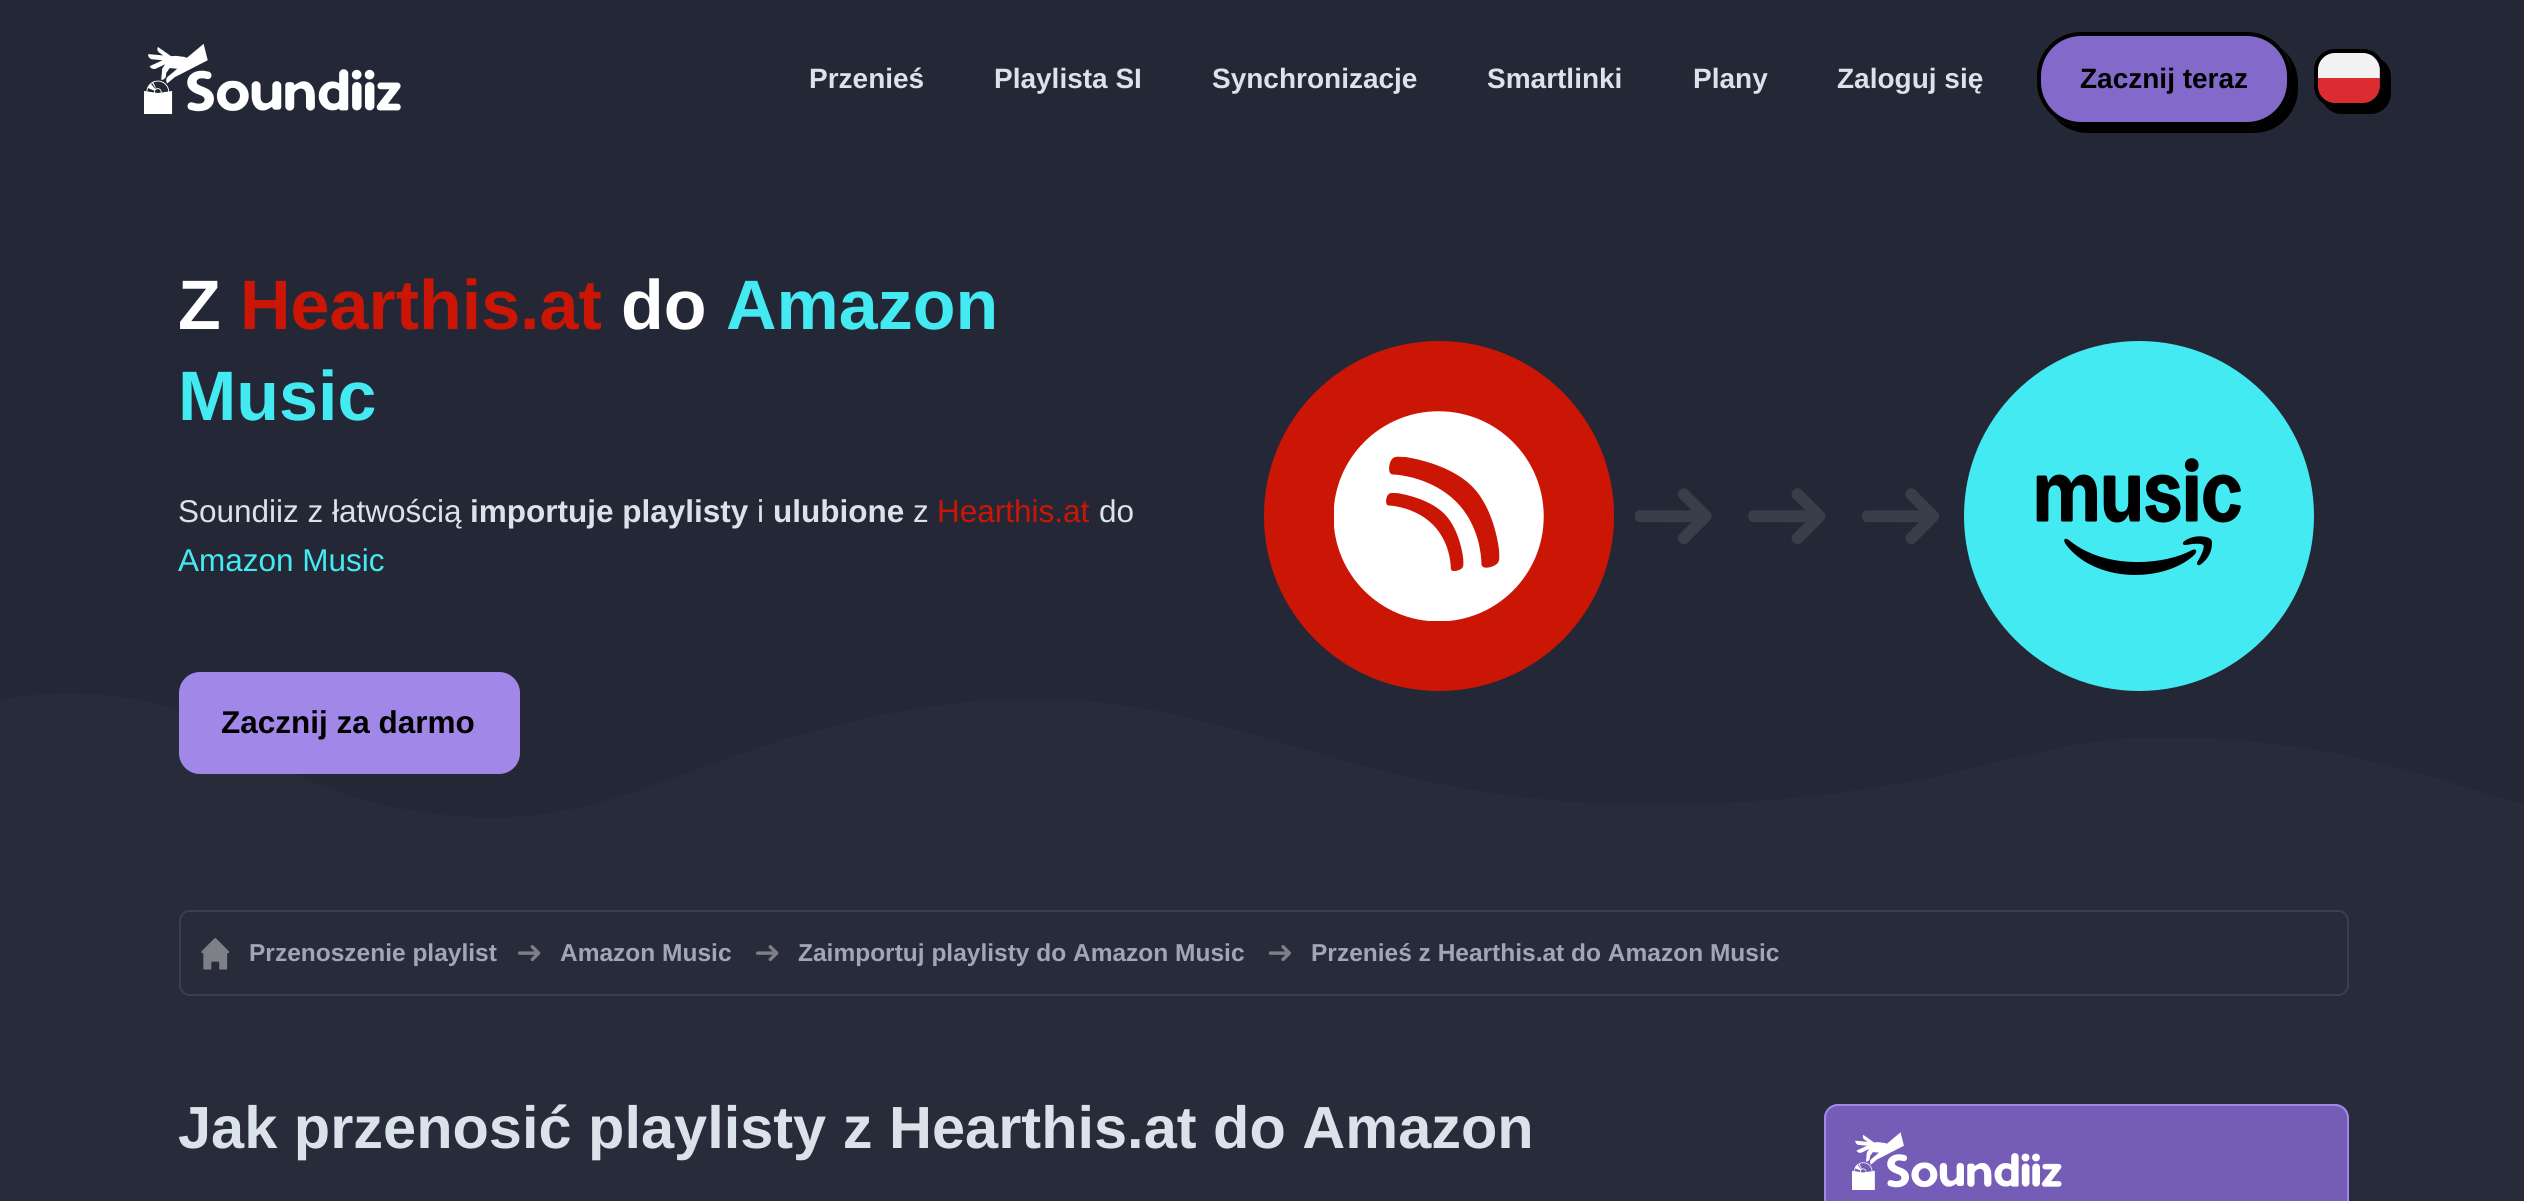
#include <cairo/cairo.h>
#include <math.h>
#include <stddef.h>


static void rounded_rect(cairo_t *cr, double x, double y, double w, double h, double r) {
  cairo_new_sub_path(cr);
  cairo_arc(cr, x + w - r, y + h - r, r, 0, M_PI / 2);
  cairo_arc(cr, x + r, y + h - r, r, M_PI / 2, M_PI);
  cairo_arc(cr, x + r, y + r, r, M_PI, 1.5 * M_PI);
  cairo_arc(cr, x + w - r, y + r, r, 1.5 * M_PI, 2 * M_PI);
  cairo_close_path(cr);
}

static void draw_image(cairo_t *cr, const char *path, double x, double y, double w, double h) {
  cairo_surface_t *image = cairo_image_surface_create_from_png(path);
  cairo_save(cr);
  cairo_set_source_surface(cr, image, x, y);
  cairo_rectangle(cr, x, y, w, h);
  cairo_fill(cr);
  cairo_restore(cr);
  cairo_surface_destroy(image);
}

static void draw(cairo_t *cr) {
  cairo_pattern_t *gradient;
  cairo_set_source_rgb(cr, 40 / 255.0, 43 / 255.0, 57 / 255.0);
  cairo_paint(cr);
  cairo_set_source_rgb(cr, 36 / 255.0, 39 / 255.0, 53 / 255.0);
  cairo_rectangle(cr, 0, 0, 2524, 818);
  cairo_fill(cr);
  draw_image(cr, "images/1.png", 144, 44, 257, 70);
  cairo_set_source_rgb(cr, 0, 0, 0);
  cairo_new_path(cr);
  cairo_move_to(cr, 2054, 117);
  cairo_curve_to(cr, 2062, 127, 2074, 133, 2088, 133);
  cairo_line_to(cr, 2254, 133);
  cairo_curve_to(cr, 2278, 133, 2298, 113, 2298, 89);
  cairo_line_to(cr, 2298, 83);
  cairo_curve_to(cr, 2298, 69, 2292, 57, 2282, 49);
  cairo_curve_to(cr, 2288, 56, 2291, 65, 2291, 75);
  cairo_line_to(cr, 2291, 82);
  cairo_curve_to(cr, 2291, 106, 2271, 126, 2247, 126);
  cairo_line_to(cr, 2081, 126);
  cairo_curve_to(cr, 2071, 126, 2061, 123, 2054, 117);
  cairo_close_path(cr);
  cairo_fill(cr);
  cairo_set_source_rgb(cr, 131 / 255.0, 105 / 255.0, 201 / 255.0);
  rounded_rect(cr, 2039, 34, 250, 90, 42);
  cairo_fill_preserve(cr);
  cairo_set_source_rgb(cr, 0, 0, 0);
  cairo_set_line_width(cr, 4);
  cairo_stroke(cr);
  cairo_new_path(cr);
  cairo_move_to(cr, 2324, 104);
  cairo_curve_to(cr, 2328, 110, 2334, 114, 2342, 114);
  cairo_line_to(cr, 2370, 114);
  cairo_curve_to(cr, 2382, 114, 2391, 105, 2391, 93);
  cairo_line_to(cr, 2391, 77);
  cairo_curve_to(cr, 2391, 69, 2387, 62, 2380, 59);
  cairo_curve_to(cr, 2382, 62, 2384, 66, 2384, 70);
  cairo_line_to(cr, 2384, 86);
  cairo_curve_to(cr, 2384, 97, 2374, 107, 2362, 107);
  cairo_line_to(cr, 2334, 107);
  cairo_curve_to(cr, 2331, 107, 2327, 106, 2324, 104);
  cairo_close_path(cr);
  cairo_fill(cr);
  draw_image(cr, "images/2.png", 2318, 53, 62, 50);
  rounded_rect(cr, 2316, 51, 66, 54, 19);
  cairo_stroke(cr);
  cairo_save(cr);
  cairo_rectangle(cr, 0, 667, 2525, 208);
  cairo_clip(cr);
  cairo_set_source_rgb(cr, 40 / 255.0, 43 / 255.0, 57 / 255.0);
  cairo_new_path(cr);
  cairo_move_to(cr, -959, 788);
  cairo_curve_to(cr, -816, 710, -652, 659, -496, 708);
  cairo_curve_to(cr, -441, 726, -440, 739, -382, 754);
  cairo_curve_to(cr, -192, 805, -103, 687, 86, 694);
  cairo_curve_to(cr, 242, 700, 242, 783, 415, 811);
  cairo_curve_to(cr, 597, 841, 668, 760, 872, 717);
  cairo_curve_to(cr, 1241, 639, 1307, 841, 1782, 799);
  cairo_curve_to(cr, 2019, 778, 2040, 724, 2235, 740);
  cairo_curve_to(cr, 2471, 759, 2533, 846, 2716, 815);
  cairo_curve_to(cr, 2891, 786, 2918, 693, 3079, 671);
  cairo_curve_to(cr, 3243, 649, 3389, 721, 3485, 785);
  cairo_line_to(cr, 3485, 876);
  cairo_line_to(cr, -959, 877);
  cairo_close_path(cr);
  cairo_fill(cr);
  cairo_restore(cr);
  cairo_set_source_rgb(cr, 161 / 255.0, 135 / 255.0, 232 / 255.0);
  rounded_rect(cr, 180, 673, 339, 100, 20);
  cairo_fill_preserve(cr);
  cairo_set_line_width(cr, 2);
  cairo_stroke(cr);
  cairo_set_source_rgb(cr, 203 / 255.0, 22 / 255.0, 6 / 255.0);
  cairo_arc(cr, 1439, 516, 175, 0, 2 * M_PI);
  cairo_fill(cr);
  draw_image(cr, "images/3.png", 1334, 411, 210, 210);
  cairo_set_source_rgb(cr, 68 / 255.0, 234 / 255.0, 242 / 255.0);
  cairo_arc(cr, 2139, 516, 175, 0, 2 * M_PI);
  cairo_fill(cr);
  draw_image(cr, "images/4.png", 2036, 458, 205, 117);
  draw_image(cr, "images/5.png", 1635, 488, 77, 56);
  draw_image(cr, "images/6.png", 1748, 488, 78, 56);
  draw_image(cr, "images/7.png", 1862, 488, 77, 56);
  rounded_rect(cr, 180, 911, 2168, 84, 10);
  cairo_set_source_rgb(cr, 58 / 255.0, 63 / 255.0, 80 / 255.0);
  cairo_stroke(cr);
  draw_image(cr, "images/8.png", 201, 938, 28, 32);
  draw_image(cr, "images/9.png", 518, 945, 23, 16);
  draw_image(cr, "images/9.png", 756, 945, 23, 16);
  draw_image(cr, "images/10.png", 1269, 945, 22, 16);
  gradient = cairo_pattern_create_radial(2086, 1888, 0, 2086, 1888, 827);
  cairo_pattern_add_color_stop_rgba(gradient, 0.2, 97 / 255.0, 74 / 255.0, 160 / 255.0, 1);
  cairo_pattern_add_color_stop_rgba(gradient, 0.7, 116 / 255.0, 92 / 255.0, 183 / 255.0, 1);
  cairo_set_source(cr, gradient);
  cairo_pattern_destroy(gradient);
  rounded_rect(cr, 1824, 1104, 525, 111, 14);
  cairo_fill(cr);
  rounded_rect(cr, 1825, 1105, 523, 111, 13);
  cairo_set_source_rgb(cr, 161 / 255.0, 135 / 255.0, 232 / 255.0);
  cairo_stroke(cr);
  draw_image(cr, "images/11.png", 1852, 1132, 210, 58);
  cairo_select_font_face(cr, "Liberation Sans", CAIRO_FONT_SLANT_NORMAL, CAIRO_FONT_WEIGHT_BOLD);
  cairo_set_font_size(cr, 28);
  cairo_set_source_rgb(cr, 218 / 255.0, 227 / 255.0, 233 / 255.0);
  cairo_move_to(cr, 809, 88);
  cairo_show_text(cr, "Przenieś");
  cairo_move_to(cr, 994, 88);
  cairo_show_text(cr, "Playlista SI");
  cairo_move_to(cr, 1212, 88);
  cairo_show_text(cr, "Synchronizacje");
  cairo_move_to(cr, 1487, 88);
  cairo_show_text(cr, "Smartlinki");
  cairo_move_to(cr, 1693, 88);
  cairo_show_text(cr, "Plany");
  cairo_move_to(cr, 1837, 88);
  cairo_show_text(cr, "Zaloguj się");
  cairo_set_source_rgb(cr, 0, 0, 0);
  cairo_move_to(cr, 2080, 88);
  cairo_show_text(cr, "Zacznij teraz");
  cairo_set_font_size(cr, 70);
  cairo_set_source_rgb(cr, 1, 1, 1);
  cairo_move_to(cr, 178, 329);
  cairo_show_text(cr, "Z");
  cairo_set_source_rgb(cr, 203 / 255.0, 22 / 255.0, 6 / 255.0);
  cairo_move_to(cr, 240, 329);
  cairo_show_text(cr, "Hearthis.at");
  cairo_set_source_rgb(cr, 1, 1, 1);
  cairo_move_to(cr, 621, 329);
  cairo_show_text(cr, "do");
  cairo_set_source_rgb(cr, 68 / 255.0, 234 / 255.0, 242 / 255.0);
  cairo_move_to(cr, 726, 329);
  cairo_show_text(cr, "Amazon");
  cairo_move_to(cr, 178, 420);
  cairo_show_text(cr, "Music");
  cairo_select_font_face(cr, "Liberation Sans", CAIRO_FONT_SLANT_NORMAL, CAIRO_FONT_WEIGHT_NORMAL);
  cairo_set_font_size(cr, 31.5);
  cairo_set_source_rgb(cr, 218 / 255.0, 227 / 255.0, 233 / 255.0);
  cairo_move_to(cr, 178, 522);
  cairo_show_text(cr, "Soundiiz z łatwością");
  cairo_select_font_face(cr, "Liberation Sans", CAIRO_FONT_SLANT_NORMAL, CAIRO_FONT_WEIGHT_BOLD);
  cairo_move_to(cr, 470, 522);
  cairo_show_text(cr, "importuje playlisty");
  cairo_select_font_face(cr, "Liberation Sans", CAIRO_FONT_SLANT_NORMAL, CAIRO_FONT_WEIGHT_NORMAL);
  cairo_move_to(cr, 757, 522);
  cairo_show_text(cr, "i");
  cairo_select_font_face(cr, "Liberation Sans", CAIRO_FONT_SLANT_NORMAL, CAIRO_FONT_WEIGHT_BOLD);
  cairo_move_to(cr, 773, 522);
  cairo_show_text(cr, "ulubione");
  cairo_select_font_face(cr, "Liberation Sans", CAIRO_FONT_SLANT_NORMAL, CAIRO_FONT_WEIGHT_NORMAL);
  cairo_move_to(cr, 913, 522);
  cairo_show_text(cr, "z");
  cairo_set_source_rgb(cr, 203 / 255.0, 22 / 255.0, 6 / 255.0);
  cairo_move_to(cr, 937, 522);
  cairo_show_text(cr, "Hearthis.at");
  cairo_set_source_rgb(cr, 218 / 255.0, 227 / 255.0, 233 / 255.0);
  cairo_move_to(cr, 1099, 522);
  cairo_show_text(cr, "do");
  cairo_set_source_rgb(cr, 68 / 255.0, 234 / 255.0, 242 / 255.0);
  cairo_move_to(cr, 178, 571);
  cairo_show_text(cr, "Amazon Music");
  cairo_select_font_face(cr, "Liberation Sans", CAIRO_FONT_SLANT_NORMAL, CAIRO_FONT_WEIGHT_BOLD);
  cairo_set_source_rgb(cr, 0, 0, 0);
  cairo_move_to(cr, 221, 733);
  cairo_show_text(cr, "Zacznij za darmo");
  cairo_set_font_size(cr, 24.5);
  cairo_set_source_rgb(cr, 161 / 255.0, 166 / 255.0, 182 / 255.0);
  cairo_move_to(cr, 249, 961);
  cairo_show_text(cr, "Przenoszenie playlist");
  cairo_move_to(cr, 560, 961);
  cairo_show_text(cr, "Amazon Music");
  cairo_move_to(cr, 798, 961);
  cairo_show_text(cr, "Zaimportuj playlisty do Amazon Music");
  cairo_move_to(cr, 1311, 961);
  cairo_show_text(cr, "Przenieś z Hearthis.at do Amazon Music");
  cairo_set_font_size(cr, 59.5);
  cairo_set_source_rgb(cr, 218 / 255.0, 227 / 255.0, 233 / 255.0);
  cairo_move_to(cr, 178, 1148);
  cairo_show_text(cr, "Jak przenosić playlisty z Hearthis.at do Amazon");
}

int main(void) {
  cairo_surface_t *surface = cairo_image_surface_create(CAIRO_FORMAT_RGB24, 2524, 1201);
  cairo_t *cr = cairo_create(surface);
  cairo_font_options_t *options = cairo_font_options_create();
  cairo_font_options_set_hint_metrics(options, CAIRO_HINT_METRICS_OFF);
  cairo_font_options_set_hint_style(options, CAIRO_HINT_STYLE_NONE);
  cairo_set_font_options(cr, options);
  cairo_set_miter_limit(cr, 4);
  draw(cr);
  cairo_surface_write_to_png(surface, "out.png");
  cairo_font_options_destroy(options);
  cairo_destroy(cr);
  cairo_surface_destroy(surface);
  return 0;
}
